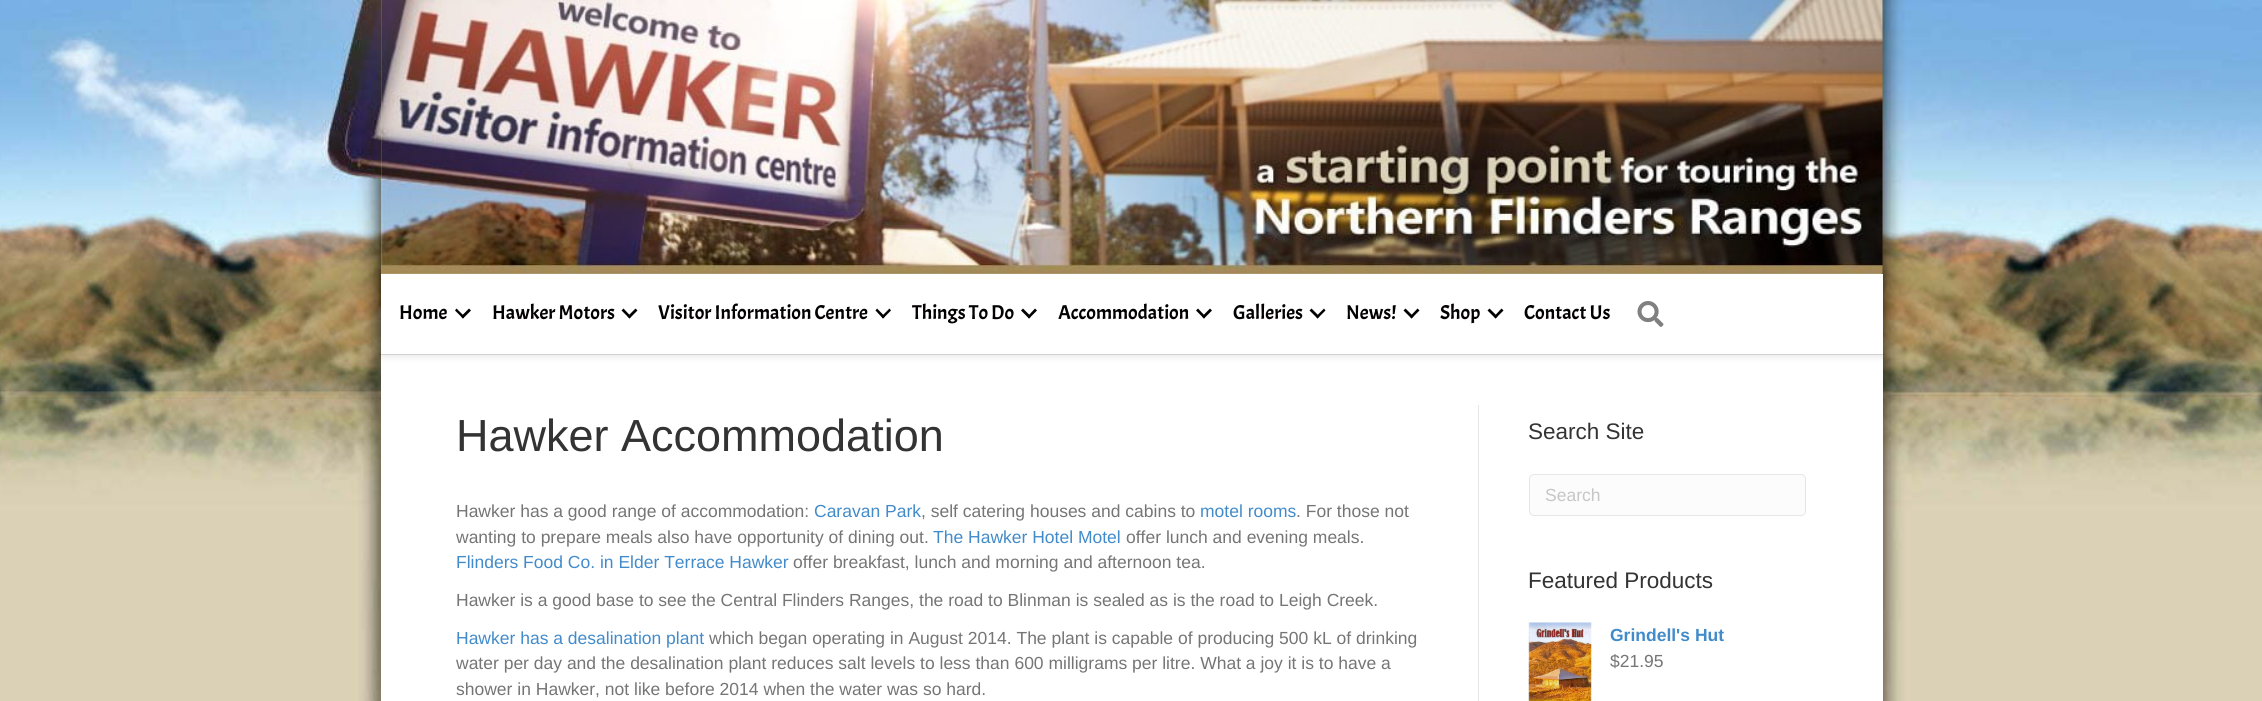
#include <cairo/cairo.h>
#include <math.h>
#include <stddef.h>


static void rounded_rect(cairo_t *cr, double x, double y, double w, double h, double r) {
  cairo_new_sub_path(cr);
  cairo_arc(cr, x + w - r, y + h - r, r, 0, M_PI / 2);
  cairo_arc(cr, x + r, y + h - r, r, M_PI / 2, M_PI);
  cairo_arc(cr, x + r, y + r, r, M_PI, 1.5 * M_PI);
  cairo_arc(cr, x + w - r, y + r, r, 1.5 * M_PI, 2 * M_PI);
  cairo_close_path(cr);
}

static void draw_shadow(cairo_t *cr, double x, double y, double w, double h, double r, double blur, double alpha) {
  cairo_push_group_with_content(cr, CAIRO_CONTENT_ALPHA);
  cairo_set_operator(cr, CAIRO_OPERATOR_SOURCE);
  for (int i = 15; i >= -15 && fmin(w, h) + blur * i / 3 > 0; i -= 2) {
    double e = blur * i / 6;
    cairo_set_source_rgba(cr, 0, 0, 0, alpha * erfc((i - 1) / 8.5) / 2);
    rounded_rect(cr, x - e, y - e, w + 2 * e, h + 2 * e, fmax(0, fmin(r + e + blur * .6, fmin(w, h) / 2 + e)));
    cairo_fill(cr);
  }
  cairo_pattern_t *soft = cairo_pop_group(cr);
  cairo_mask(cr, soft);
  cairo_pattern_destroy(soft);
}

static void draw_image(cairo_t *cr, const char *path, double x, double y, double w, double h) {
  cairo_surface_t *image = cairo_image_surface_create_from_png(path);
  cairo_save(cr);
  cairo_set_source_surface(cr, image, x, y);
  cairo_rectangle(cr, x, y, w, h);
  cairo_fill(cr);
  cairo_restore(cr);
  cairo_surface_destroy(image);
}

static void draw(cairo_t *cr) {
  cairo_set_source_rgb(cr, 1, 1, 1);
  cairo_paint(cr);
  draw_image(cr, "images/1.png", 0, 0, 2262, 701);
  draw_image(cr, "images/2.png", 381, 0, 1502, 274);
  cairo_set_source_rgb(cr, 1, 1, 1);
  cairo_rectangle(cr, 381, 355, 1502, 346);
  cairo_fill(cr);
  cairo_set_source_rgb(cr, 0, 0, 0);
  draw_shadow(cr, 380, 274, 1504, 84, 0, 3, 0.07);
  cairo_set_source_rgb(cr, 1, 1, 1);
  cairo_rectangle(cr, 381, 274, 1502, 80);
  cairo_fill(cr);
  cairo_set_source_rgb(cr, 209 / 255.0, 209 / 255.0, 209 / 255.0);
  cairo_rectangle(cr, 381, 354, 1502, 1);
  cairo_fill(cr);
  cairo_set_source_rgb(cr, 2 / 255.0, 0, 0);
  cairo_new_path(cr);
  cairo_move_to(cr, 469, 308.5);
  cairo_line_to(cr, 471, 310.5);
  cairo_line_to(cr, 463, 318.5);
  cairo_line_to(cr, 461, 316.5);
  cairo_close_path(cr);
  cairo_fill(cr);
  cairo_new_path(cr);
  cairo_move_to(cr, 456.5, 308.5);
  cairo_line_to(cr, 464.5, 316.5);
  cairo_line_to(cr, 463, 318.5);
  cairo_line_to(cr, 455, 310.5);
  cairo_close_path(cr);
  cairo_fill(cr);
  cairo_new_path(cr);
  cairo_move_to(cr, 635.5, 308.5);
  cairo_line_to(cr, 637.5, 310.5);
  cairo_line_to(cr, 629.5, 318.5);
  cairo_line_to(cr, 627.5, 316.5);
  cairo_close_path(cr);
  cairo_fill(cr);
  cairo_new_path(cr);
  cairo_move_to(cr, 623.5, 308.5);
  cairo_line_to(cr, 631, 316.5);
  cairo_line_to(cr, 629.5, 318.5);
  cairo_line_to(cr, 621.5, 310.5);
  cairo_close_path(cr);
  cairo_fill(cr);
  cairo_new_path(cr);
  cairo_move_to(cr, 889.5, 308.5);
  cairo_line_to(cr, 891, 310.5);
  cairo_line_to(cr, 883, 318.5);
  cairo_line_to(cr, 881.5, 316.5);
  cairo_close_path(cr);
  cairo_fill(cr);
  cairo_new_path(cr);
  cairo_move_to(cr, 877, 308.5);
  cairo_line_to(cr, 885, 316.5);
  cairo_line_to(cr, 883, 318.5);
  cairo_line_to(cr, 875.5, 310.5);
  cairo_close_path(cr);
  cairo_fill(cr);
  cairo_new_path(cr);
  cairo_move_to(cr, 1035, 308.5);
  cairo_line_to(cr, 1037, 310.5);
  cairo_line_to(cr, 1029, 318.5);
  cairo_line_to(cr, 1027.5, 316.5);
  cairo_close_path(cr);
  cairo_fill(cr);
  cairo_new_path(cr);
  cairo_move_to(cr, 1023, 308.5);
  cairo_line_to(cr, 1031, 316.5);
  cairo_line_to(cr, 1029, 318.5);
  cairo_line_to(cr, 1021, 310.5);
  cairo_close_path(cr);
  cairo_fill(cr);
  cairo_new_path(cr);
  cairo_move_to(cr, 1210, 308.5);
  cairo_line_to(cr, 1212, 310.5);
  cairo_line_to(cr, 1204, 318.5);
  cairo_line_to(cr, 1202, 316.5);
  cairo_close_path(cr);
  cairo_fill(cr);
  cairo_new_path(cr);
  cairo_move_to(cr, 1198, 308.5);
  cairo_line_to(cr, 1205.5, 316.5);
  cairo_line_to(cr, 1204, 318.5);
  cairo_line_to(cr, 1196, 310.5);
  cairo_close_path(cr);
  cairo_fill(cr);
  cairo_new_path(cr);
  cairo_move_to(cr, 1324, 308.5);
  cairo_line_to(cr, 1325.5, 310.5);
  cairo_line_to(cr, 1317.5, 318.5);
  cairo_line_to(cr, 1316, 316.5);
  cairo_close_path(cr);
  cairo_fill(cr);
  cairo_new_path(cr);
  cairo_move_to(cr, 1311.5, 308.5);
  cairo_line_to(cr, 1319.5, 316.5);
  cairo_line_to(cr, 1317.5, 318.5);
  cairo_line_to(cr, 1309.5, 310.5);
  cairo_close_path(cr);
  cairo_fill(cr);
  cairo_new_path(cr);
  cairo_move_to(cr, 1417.5, 308.5);
  cairo_line_to(cr, 1419.5, 310.5);
  cairo_line_to(cr, 1411.5, 318.5);
  cairo_line_to(cr, 1410, 316.5);
  cairo_close_path(cr);
  cairo_fill(cr);
  cairo_new_path(cr);
  cairo_move_to(cr, 1405.5, 308.5);
  cairo_line_to(cr, 1413.5, 316.5);
  cairo_line_to(cr, 1411.5, 318.5);
  cairo_line_to(cr, 1403.5, 310.5);
  cairo_close_path(cr);
  cairo_fill(cr);
  cairo_new_path(cr);
  cairo_move_to(cr, 1501.5, 308.5);
  cairo_line_to(cr, 1503.5, 310.5);
  cairo_line_to(cr, 1495.5, 318.5);
  cairo_line_to(cr, 1494, 316.5);
  cairo_close_path(cr);
  cairo_fill(cr);
  cairo_new_path(cr);
  cairo_move_to(cr, 1489.5, 308.5);
  cairo_line_to(cr, 1497.5, 316.5);
  cairo_line_to(cr, 1495.5, 318.5);
  cairo_line_to(cr, 1487.5, 310.5);
  cairo_close_path(cr);
  cairo_fill(cr);
  draw_image(cr, "images/3.png", 1637, 301, 27, 26);
  cairo_set_source_rgb(cr, 230 / 255.0, 230 / 255.0, 230 / 255.0);
  cairo_rectangle(cr, 1478, 405, 1, 296);
  cairo_fill(cr);
  cairo_set_source_rgb(cr, 252 / 255.0, 252 / 255.0, 252 / 255.0);
  rounded_rect(cr, 1529.5, 474.5, 276, 41, 4.5);
  cairo_fill_preserve(cr);
  cairo_set_source_rgb(cr, 230 / 255.0, 230 / 255.0, 230 / 255.0);
  cairo_set_line_width(cr, 1);
  cairo_stroke(cr);
  draw_image(cr, "images/4.png", 1528, 622, 64, 79);
  cairo_select_font_face(cr, "Acme", CAIRO_FONT_SLANT_NORMAL, CAIRO_FONT_WEIGHT_NORMAL);
  cairo_set_font_size(cr, 20);
  cairo_set_source_rgb(cr, 2 / 255.0, 0, 0);
  cairo_move_to(cr, 399, 319);
  cairo_show_text(cr, "Home");
  cairo_move_to(cr, 492, 319);
  cairo_show_text(cr, "Hawker Motors");
  cairo_move_to(cr, 658, 319);
  cairo_show_text(cr, "Visitor Information Centre");
  cairo_move_to(cr, 912, 319);
  cairo_show_text(cr, "Things To Do");
  cairo_move_to(cr, 1058, 319);
  cairo_show_text(cr, "Accommodation");
  cairo_move_to(cr, 1233, 319);
  cairo_show_text(cr, "Galleries");
  cairo_move_to(cr, 1346, 319);
  cairo_show_text(cr, "News!");
  cairo_move_to(cr, 1440, 319);
  cairo_show_text(cr, "Shop");
  cairo_move_to(cr, 1524, 319);
  cairo_show_text(cr, "Contact Us");
  cairo_select_font_face(cr, "Liberation Sans", CAIRO_FONT_SLANT_NORMAL, CAIRO_FONT_WEIGHT_NORMAL);
  cairo_set_font_size(cr, 45);
  cairo_set_source_rgb(cr, 51 / 255.0, 51 / 255.0, 51 / 255.0);
  cairo_move_to(cr, 456, 451);
  cairo_show_text(cr, "Hawker Accommodation");
  cairo_set_font_size(cr, 17.5);
  cairo_set_source_rgb(cr, 117 / 255.0, 117 / 255.0, 117 / 255.0);
  cairo_move_to(cr, 456, 517);
  cairo_show_text(cr, "Hawker has a good range of accommodation:");
  cairo_set_source_rgb(cr, 66 / 255.0, 139 / 255.0, 202 / 255.0);
  cairo_move_to(cr, 814, 517);
  cairo_show_text(cr, "Caravan Park");
  cairo_set_source_rgb(cr, 117 / 255.0, 117 / 255.0, 117 / 255.0);
  cairo_move_to(cr, 921, 517);
  cairo_show_text(cr, ", self catering houses and cabins to");
  cairo_set_source_rgb(cr, 66 / 255.0, 139 / 255.0, 202 / 255.0);
  cairo_move_to(cr, 1200, 517);
  cairo_show_text(cr, "motel rooms");
  cairo_set_source_rgb(cr, 117 / 255.0, 117 / 255.0, 117 / 255.0);
  cairo_move_to(cr, 1296, 517);
  cairo_show_text(cr, ". For those not");
  cairo_move_to(cr, 456, 543);
  cairo_show_text(cr, "wanting to prepare meals also have opportunity of dining out.");
  cairo_set_source_rgb(cr, 66 / 255.0, 139 / 255.0, 202 / 255.0);
  cairo_move_to(cr, 933, 543);
  cairo_show_text(cr, "The Hawker Hotel Motel");
  cairo_set_source_rgb(cr, 117 / 255.0, 117 / 255.0, 117 / 255.0);
  cairo_move_to(cr, 1126, 543);
  cairo_show_text(cr, "offer lunch and evening meals.");
  cairo_set_source_rgb(cr, 66 / 255.0, 139 / 255.0, 202 / 255.0);
  cairo_move_to(cr, 456, 568);
  cairo_show_text(cr, "Flinders Food Co. in Elder Terrace Hawker");
  cairo_set_source_rgb(cr, 117 / 255.0, 117 / 255.0, 117 / 255.0);
  cairo_move_to(cr, 793, 568);
  cairo_show_text(cr, "offer breakfast, lunch and morning and afternoon tea.");
  cairo_move_to(cr, 456, 606);
  cairo_show_text(cr, "Hawker is a good base to see the Central Flinders Ranges, the road to Blinman is sealed as is the road to Leigh Creek.");
  cairo_set_source_rgb(cr, 66 / 255.0, 139 / 255.0, 202 / 255.0);
  cairo_move_to(cr, 456, 644);
  cairo_show_text(cr, "Hawker has a desalination plant");
  cairo_set_source_rgb(cr, 117 / 255.0, 117 / 255.0, 117 / 255.0);
  cairo_move_to(cr, 709, 644);
  cairo_show_text(cr, "which began operating in August 2014. The plant is capable of producing 500 kL of drinking");
  cairo_move_to(cr, 456, 669);
  cairo_show_text(cr, "water per day and the desalination plant reduces salt levels to less than 600 milligrams per litre. What a joy it is to have a");
  cairo_move_to(cr, 456, 695);
  cairo_show_text(cr, "shower in Hawker, not like before 2014 when the water was so hard.");
  cairo_set_font_size(cr, 22.5);
  cairo_set_source_rgb(cr, 51 / 255.0, 51 / 255.0, 51 / 255.0);
  cairo_move_to(cr, 1528, 439);
  cairo_show_text(cr, "Search Site");
  cairo_set_font_size(cr, 17.5);
  cairo_set_source_rgb(cr, 198 / 255.0, 198 / 255.0, 198 / 255.0);
  cairo_move_to(cr, 1545, 501);
  cairo_show_text(cr, "Search");
  cairo_set_font_size(cr, 22.5);
  cairo_set_source_rgb(cr, 51 / 255.0, 51 / 255.0, 51 / 255.0);
  cairo_move_to(cr, 1528, 588);
  cairo_show_text(cr, "Featured Products");
  cairo_select_font_face(cr, "Liberation Sans", CAIRO_FONT_SLANT_NORMAL, CAIRO_FONT_WEIGHT_BOLD);
  cairo_set_font_size(cr, 17.5);
  cairo_set_source_rgb(cr, 66 / 255.0, 139 / 255.0, 202 / 255.0);
  cairo_move_to(cr, 1610, 641);
  cairo_show_text(cr, "Grindell's Hut");
  cairo_select_font_face(cr, "Liberation Sans", CAIRO_FONT_SLANT_NORMAL, CAIRO_FONT_WEIGHT_NORMAL);
  cairo_set_source_rgb(cr, 117 / 255.0, 117 / 255.0, 117 / 255.0);
  cairo_move_to(cr, 1610, 667);
  cairo_show_text(cr, "$21.95");
}

int main(void) {
  cairo_surface_t *surface = cairo_image_surface_create(CAIRO_FORMAT_RGB24, 2262, 701);
  cairo_t *cr = cairo_create(surface);
  cairo_font_options_t *options = cairo_font_options_create();
  cairo_font_options_set_hint_metrics(options, CAIRO_HINT_METRICS_OFF);
  cairo_font_options_set_hint_style(options, CAIRO_HINT_STYLE_NONE);
  cairo_set_font_options(cr, options);
  cairo_set_miter_limit(cr, 4);
  draw(cr);
  cairo_surface_write_to_png(surface, "out.png");
  cairo_font_options_destroy(options);
  cairo_destroy(cr);
  cairo_surface_destroy(surface);
  return 0;
}
